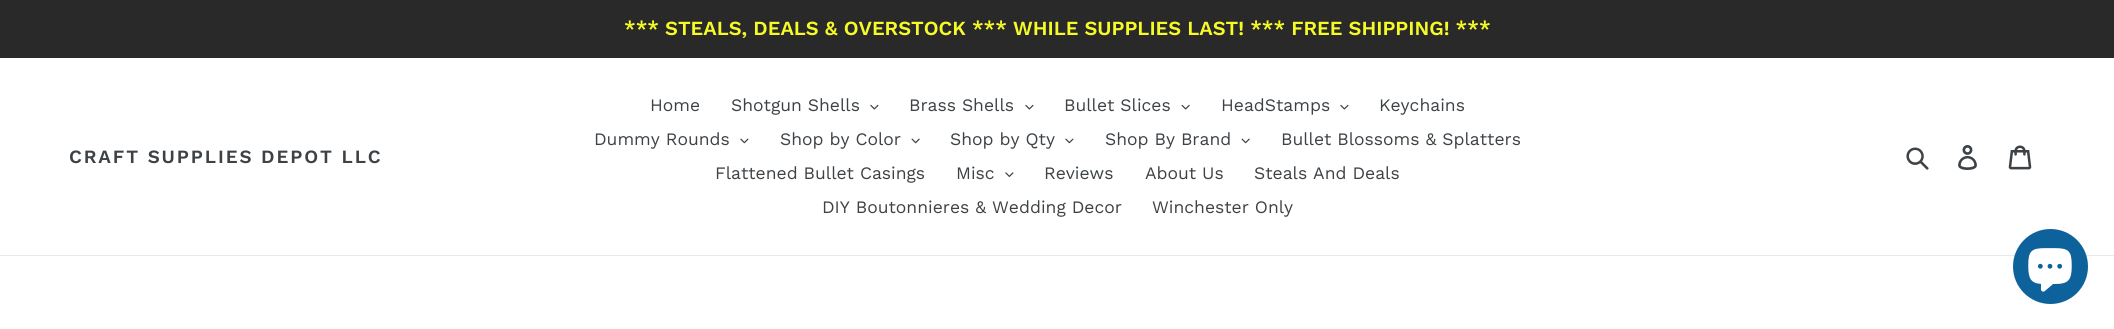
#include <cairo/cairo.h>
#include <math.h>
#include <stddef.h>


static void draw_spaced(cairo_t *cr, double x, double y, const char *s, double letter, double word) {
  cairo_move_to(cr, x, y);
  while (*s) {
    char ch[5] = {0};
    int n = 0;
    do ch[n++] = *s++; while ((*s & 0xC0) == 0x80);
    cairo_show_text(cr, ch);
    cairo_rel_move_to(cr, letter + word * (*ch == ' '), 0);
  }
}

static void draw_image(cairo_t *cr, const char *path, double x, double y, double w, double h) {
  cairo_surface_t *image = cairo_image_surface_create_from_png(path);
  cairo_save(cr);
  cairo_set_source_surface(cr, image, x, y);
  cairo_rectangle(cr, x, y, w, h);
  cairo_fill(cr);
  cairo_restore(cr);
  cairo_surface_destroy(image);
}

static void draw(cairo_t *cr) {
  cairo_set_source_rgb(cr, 1, 1, 1);
  cairo_paint(cr);
  cairo_set_source_rgb(cr, 41 / 255.0, 41 / 255.0, 41 / 255.0);
  cairo_rectangle(cr, 0, 0, 2114, 58);
  cairo_fill(cr);
  cairo_set_source_rgb(cr, 232 / 255.0, 233 / 255.0, 235 / 255.0);
  cairo_rectangle(cr, 0, 255, 2114, 1);
  cairo_fill(cr);
  draw_image(cr, "images/1.png", 870, 104, 9, 6);
  draw_image(cr, "images/1.png", 1025, 104, 9, 6);
  draw_image(cr, "images/2.png", 1181, 104, 9, 6);
  draw_image(cr, "images/1.png", 1340, 104, 9, 6);
  draw_image(cr, "images/3.png", 740, 138, 9, 6);
  draw_image(cr, "images/4.png", 911, 138, 9, 6);
  draw_image(cr, "images/3.png", 1065, 138, 9, 6);
  draw_image(cr, "images/4.png", 1241, 138, 9, 6);
  draw_image(cr, "images/5.png", 1005, 172, 9, 5);
  draw_image(cr, "images/6.png", 1906, 147, 23, 23);
  draw_image(cr, "images/7.png", 1958, 145, 19, 25);
  draw_image(cr, "images/8.png", 2008, 145, 24, 25);
  cairo_set_source_rgb(cr, 14 / 255.0, 98 / 255.0, 155 / 255.0);
  cairo_arc(cr, 2050.5, 266.5, 37.5, 0, 2 * M_PI);
  cairo_fill(cr);
  draw_image(cr, "images/9.png", 2028, 248, 44, 44);
  cairo_select_font_face(cr, "Work Sans SemiBold", CAIRO_FONT_SLANT_NORMAL, CAIRO_FONT_WEIGHT_NORMAL);
  cairo_set_font_size(cr, 20);
  cairo_set_source_rgb(cr, 246 / 255.0, 251 / 255.0, 39 / 255.0);
  cairo_move_to(cr, 624, 35);
  cairo_show_text(cr, "*** STEALS, DEALS & OVERSTOCK *** WHILE SUPPLIES LAST! *** FREE SHIPPING! ***");
  cairo_set_font_size(cr, 18.75);
  cairo_set_source_rgb(cr, 61 / 255.0, 66 / 255.0, 70 / 255.0);
  draw_spaced(cr, 69, 163, "CRAFT SUPPLIES DEPOT LLC", 1.9, 0);
  cairo_select_font_face(cr, "Work Sans", CAIRO_FONT_SLANT_NORMAL, CAIRO_FONT_WEIGHT_NORMAL);
  cairo_set_font_size(cr, 17.5);
  cairo_move_to(cr, 650, 111);
  cairo_show_text(cr, "Home");
  cairo_move_to(cr, 731, 111);
  cairo_show_text(cr, "Shotgun Shells");
  cairo_move_to(cr, 909, 111);
  cairo_show_text(cr, "Brass Shells");
  cairo_move_to(cr, 1064, 111);
  cairo_show_text(cr, "Bullet Slices");
  cairo_move_to(cr, 1221, 111);
  cairo_show_text(cr, "HeadStamps");
  cairo_move_to(cr, 1379, 111);
  cairo_show_text(cr, "Keychains");
  cairo_move_to(cr, 594, 145);
  cairo_show_text(cr, "Dummy Rounds");
  cairo_move_to(cr, 780, 145);
  cairo_show_text(cr, "Shop by Color");
  cairo_move_to(cr, 950, 145);
  cairo_show_text(cr, "Shop by Qty");
  cairo_move_to(cr, 1105, 145);
  cairo_show_text(cr, "Shop By Brand");
  cairo_move_to(cr, 1281, 145);
  cairo_show_text(cr, "Bullet Blossoms & Splatters");
  cairo_move_to(cr, 715, 179);
  cairo_show_text(cr, "Flattened Bullet Casings");
  cairo_move_to(cr, 956, 179);
  cairo_show_text(cr, "Misc");
  cairo_move_to(cr, 1044, 179);
  cairo_show_text(cr, "Reviews");
  cairo_move_to(cr, 1145, 179);
  cairo_show_text(cr, "About Us");
  cairo_move_to(cr, 1254, 179);
  cairo_show_text(cr, "Steals And Deals");
  cairo_move_to(cr, 822, 213);
  cairo_show_text(cr, "DIY Boutonnieres & Wedding Decor");
  cairo_move_to(cr, 1152, 213);
  cairo_show_text(cr, "Winchester Only");
}

int main(void) {
  cairo_surface_t *surface = cairo_image_surface_create(CAIRO_FORMAT_RGB24, 2114, 329);
  cairo_t *cr = cairo_create(surface);
  cairo_font_options_t *options = cairo_font_options_create();
  cairo_font_options_set_hint_metrics(options, CAIRO_HINT_METRICS_OFF);
  cairo_font_options_set_hint_style(options, CAIRO_HINT_STYLE_NONE);
  cairo_set_font_options(cr, options);
  cairo_set_miter_limit(cr, 4);
  draw(cr);
  cairo_surface_write_to_png(surface, "out.png");
  cairo_font_options_destroy(options);
  cairo_destroy(cr);
  cairo_surface_destroy(surface);
  return 0;
}
